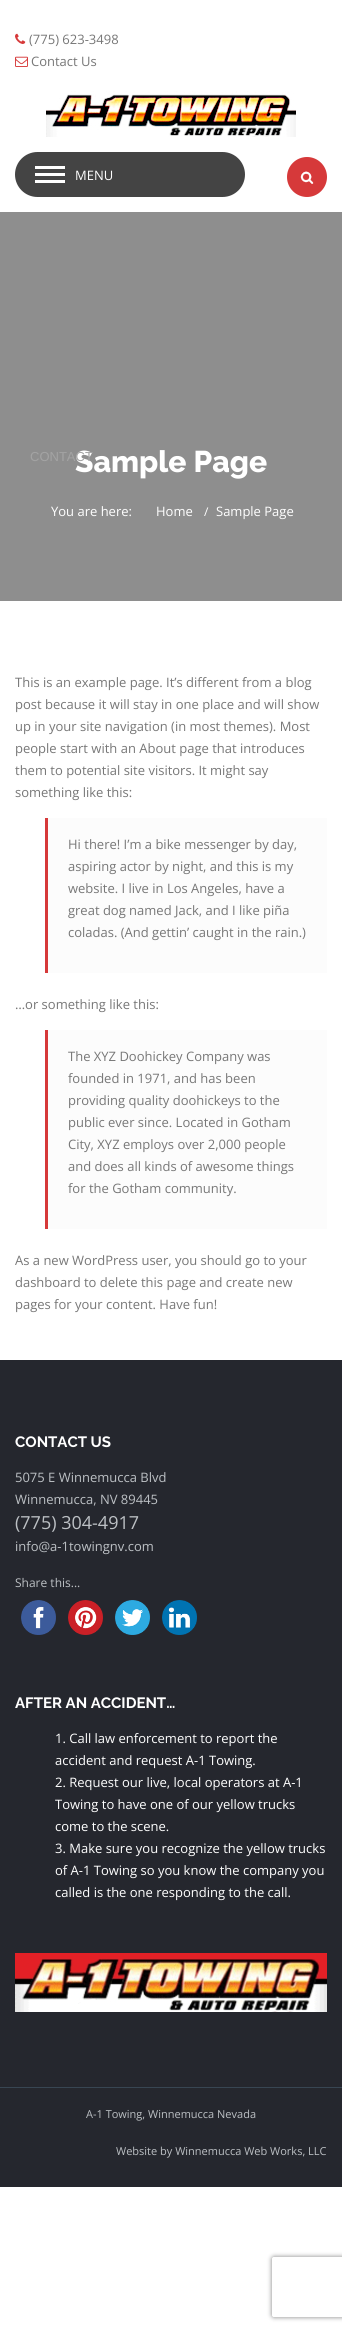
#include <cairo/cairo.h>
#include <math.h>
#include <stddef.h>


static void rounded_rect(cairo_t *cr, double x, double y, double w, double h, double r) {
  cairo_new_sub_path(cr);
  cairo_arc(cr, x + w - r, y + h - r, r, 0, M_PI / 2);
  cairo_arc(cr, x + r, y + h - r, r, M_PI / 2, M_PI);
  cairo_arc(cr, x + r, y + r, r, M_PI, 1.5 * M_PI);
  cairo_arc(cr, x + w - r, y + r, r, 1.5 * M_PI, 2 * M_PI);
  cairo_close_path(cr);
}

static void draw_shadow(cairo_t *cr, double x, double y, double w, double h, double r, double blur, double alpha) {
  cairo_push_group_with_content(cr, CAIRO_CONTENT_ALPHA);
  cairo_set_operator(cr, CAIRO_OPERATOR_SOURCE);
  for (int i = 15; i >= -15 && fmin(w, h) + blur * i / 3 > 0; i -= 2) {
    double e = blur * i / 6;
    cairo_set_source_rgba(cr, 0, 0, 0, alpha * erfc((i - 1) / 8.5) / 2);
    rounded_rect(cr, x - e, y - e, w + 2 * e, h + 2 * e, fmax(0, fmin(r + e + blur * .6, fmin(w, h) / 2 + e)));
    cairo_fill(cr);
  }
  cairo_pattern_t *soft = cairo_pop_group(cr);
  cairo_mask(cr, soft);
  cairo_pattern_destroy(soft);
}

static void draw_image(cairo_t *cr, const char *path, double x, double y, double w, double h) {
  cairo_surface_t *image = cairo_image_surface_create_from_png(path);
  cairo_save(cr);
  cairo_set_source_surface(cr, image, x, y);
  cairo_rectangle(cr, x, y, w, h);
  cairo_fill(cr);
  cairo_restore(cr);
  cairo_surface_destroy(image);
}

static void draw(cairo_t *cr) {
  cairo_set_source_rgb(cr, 1, 1, 1);
  cairo_paint(cr);
  draw_image(cr, "images/1.png", 15, 33, 11, 11);
  draw_image(cr, "images/2.png", 15, 56, 13, 11);
  draw_image(cr, "images/3.png", 46, 91, 250, 46);
  cairo_set_source_rgb(cr, 68 / 255.0, 68 / 255.0, 68 / 255.0);
  rounded_rect(cr, 15, 152, 230, 45, 22.5);
  cairo_fill(cr);
  cairo_set_source_rgb(cr, 1, 1, 1);
  cairo_rectangle(cr, 35, 180, 30, 3);
  cairo_fill(cr);
  cairo_rectangle(cr, 35, 173, 30, 3);
  cairo_fill(cr);
  cairo_rectangle(cr, 35, 166, 30, 3);
  cairo_fill(cr);
  cairo_set_source_rgb(cr, 214 / 255.0, 57 / 255.0, 58 / 255.0);
  cairo_arc(cr, 307, 177, 20, 0, 2 * M_PI);
  cairo_fill(cr);
  draw_image(cr, "images/4.png", 300, 171, 14, 13);
  cairo_set_source_rgb(cr, 142 / 255.0, 142 / 255.0, 142 / 255.0);
  cairo_rectangle(cr, 0, 212, 342, 389);
  cairo_fill(cr);
  cairo_set_source_rgb(cr, 252 / 255.0, 252 / 255.0, 252 / 255.0);
  cairo_rectangle(cr, 48, 818, 279, 155);
  cairo_fill(cr);
  cairo_set_source_rgb(cr, 214 / 255.0, 57 / 255.0, 58 / 255.0);
  cairo_rectangle(cr, 45, 818, 3, 155);
  cairo_fill(cr);
  cairo_set_source_rgb(cr, 252 / 255.0, 252 / 255.0, 252 / 255.0);
  cairo_rectangle(cr, 48, 1030, 279, 199);
  cairo_fill(cr);
  cairo_set_source_rgb(cr, 214 / 255.0, 57 / 255.0, 58 / 255.0);
  cairo_rectangle(cr, 45, 1030, 3, 199);
  cairo_fill(cr);
  cairo_set_source_rgb(cr, 37 / 255.0, 39 / 255.0, 46 / 255.0);
  cairo_rectangle(cr, 0, 1360, 342, 827);
  cairo_fill(cr);
  draw_image(cr, "images/5.png", 21, 1600, 35, 35);
  draw_image(cr, "images/6.png", 68, 1600, 35, 35);
  draw_image(cr, "images/7.png", 115, 1600, 35, 35);
  draw_image(cr, "images/8.png", 162, 1600, 35, 35);
  draw_image(cr, "images/9.png", 15, 1953, 312, 59);
  cairo_set_source_rgb(cr, 56 / 255.0, 70 / 255.0, 83 / 255.0);
  cairo_rectangle(cr, 0, 2087, 342, 1);
  cairo_fill(cr);
  cairo_save(cr);
  cairo_set_fill_rule(cr, CAIRO_FILL_RULE_EVEN_ODD);
  cairo_new_path(cr);
  cairo_move_to(cr, 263, 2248);
  cairo_line_to(cr, 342, 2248);
  cairo_line_to(cr, 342, 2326);
  cairo_line_to(cr, 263, 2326);
  cairo_close_path(cr);
  cairo_move_to(cr, 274, 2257);
  cairo_line_to(cr, 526, 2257);
  cairo_curve_to(cr, 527, 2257, 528, 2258, 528, 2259);
  cairo_line_to(cr, 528, 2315);
  cairo_curve_to(cr, 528, 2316, 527, 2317, 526, 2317);
  cairo_line_to(cr, 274, 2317);
  cairo_curve_to(cr, 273, 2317, 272, 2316, 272, 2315);
  cairo_line_to(cr, 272, 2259);
  cairo_curve_to(cr, 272, 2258, 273, 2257, 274, 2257);
  cairo_close_path(cr);
  cairo_clip(cr);
  cairo_set_source_rgb(cr, 128 / 255.0, 128 / 255.0, 128 / 255.0);
  draw_shadow(cr, 272, 2257, 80, 60, 2, 2.5, 1);
  cairo_restore(cr);
  cairo_select_font_face(cr, "Open Sans", CAIRO_FONT_SLANT_NORMAL, CAIRO_FONT_WEIGHT_NORMAL);
  cairo_set_font_size(cr, 13);
  cairo_set_source_rgb(cr, 119 / 255.0, 119 / 255.0, 119 / 255.0);
  cairo_move_to(cr, 29, 44);
  cairo_show_text(cr, "(775) 623-3498");
  cairo_move_to(cr, 31, 66);
  cairo_show_text(cr, "Contact Us");
  cairo_set_source_rgb(cr, 1, 1, 1);
  cairo_move_to(cr, 75, 180);
  cairo_show_text(cr, "MENU");
  cairo_select_font_face(cr, "Raleway Thin", CAIRO_FONT_SLANT_NORMAL, CAIRO_FONT_WEIGHT_NORMAL);
  cairo_set_font_size(cr, 30);
  cairo_move_to(cr, 75, 472);
  cairo_show_text(cr, "Sample Page");
  cairo_select_font_face(cr, "Liberation Sans", CAIRO_FONT_SLANT_NORMAL, CAIRO_FONT_WEIGHT_NORMAL);
  cairo_set_font_size(cr, 13);
  cairo_set_source_rgb(cr, 163 / 255.0, 163 / 255.0, 163 / 255.0);
  cairo_move_to(cr, 30, 461);
  cairo_show_text(cr, "CONTACT");
  cairo_select_font_face(cr, "Open Sans", CAIRO_FONT_SLANT_NORMAL, CAIRO_FONT_WEIGHT_NORMAL);
  cairo_set_source_rgb(cr, 1, 1, 1);
  cairo_move_to(cr, 51, 516);
  cairo_show_text(cr, "You are here:");
  cairo_move_to(cr, 156, 516);
  cairo_show_text(cr, "Home");
  cairo_set_font_size(cr, 12);
  cairo_move_to(cr, 204, 516);
  cairo_show_text(cr, "/");
  cairo_set_font_size(cr, 13);
  cairo_move_to(cr, 216, 516);
  cairo_show_text(cr, "Sample Page");
  cairo_set_source_rgb(cr, 119 / 255.0, 119 / 255.0, 119 / 255.0);
  cairo_move_to(cr, 15, 687);
  cairo_show_text(cr, "This is an example page. It’s different from a blog");
  cairo_move_to(cr, 15, 709);
  cairo_show_text(cr, "post because it will stay in one place and will show");
  cairo_move_to(cr, 15, 731);
  cairo_show_text(cr, "up in your site navigation (in most themes). Most");
  cairo_move_to(cr, 15, 753);
  cairo_show_text(cr, "people start with an About page that introduces");
  cairo_move_to(cr, 15, 775);
  cairo_show_text(cr, "them to potential site visitors. It might say");
  cairo_move_to(cr, 15, 797);
  cairo_show_text(cr, "something like this:");
  cairo_move_to(cr, 68, 849);
  cairo_show_text(cr, "Hi there! I’m a bike messenger by day,");
  cairo_move_to(cr, 68, 871);
  cairo_show_text(cr, "aspiring actor by night, and this is my");
  cairo_move_to(cr, 68, 893);
  cairo_show_text(cr, "website. I live in Los Angeles, have a");
  cairo_move_to(cr, 68, 915);
  cairo_show_text(cr, "great dog named Jack, and I like piña");
  cairo_move_to(cr, 68, 937);
  cairo_show_text(cr, "coladas. (And gettin’ caught in the rain.)");
  cairo_move_to(cr, 15, 1009);
  cairo_show_text(cr, "…or something like this:");
  cairo_move_to(cr, 68, 1061);
  cairo_show_text(cr, "The XYZ Doohickey Company was");
  cairo_move_to(cr, 68, 1083);
  cairo_show_text(cr, "founded in 1971, and has been");
  cairo_move_to(cr, 68, 1105);
  cairo_show_text(cr, "providing quality doohickeys to the");
  cairo_move_to(cr, 68, 1127);
  cairo_show_text(cr, "public ever since. Located in Gotham");
  cairo_move_to(cr, 68, 1149);
  cairo_show_text(cr, "City, XYZ employs over 2,000 people");
  cairo_move_to(cr, 68, 1171);
  cairo_show_text(cr, "and does all kinds of awesome things");
  cairo_move_to(cr, 68, 1193);
  cairo_show_text(cr, "for the Gotham community.");
  cairo_move_to(cr, 15, 1265);
  cairo_show_text(cr, "As a new WordPress user, you should go to your");
  cairo_move_to(cr, 15, 1287);
  cairo_show_text(cr, "dashboard to delete this page and create new");
  cairo_move_to(cr, 15, 1309);
  cairo_show_text(cr, "pages for your content. Have fun!");
  cairo_select_font_face(cr, "Raleway", CAIRO_FONT_SLANT_NORMAL, CAIRO_FONT_WEIGHT_BOLD);
  cairo_set_font_size(cr, 15);
  cairo_set_source_rgb(cr, 1, 1, 1);
  cairo_move_to(cr, 15, 1447);
  cairo_show_text(cr, "CONTACT US");
  cairo_select_font_face(cr, "Open Sans", CAIRO_FONT_SLANT_NORMAL, CAIRO_FONT_WEIGHT_NORMAL);
  cairo_set_font_size(cr, 13);
  cairo_set_source_rgb(cr, 188 / 255.0, 192 / 255.0, 196 / 255.0);
  cairo_move_to(cr, 15, 1482);
  cairo_show_text(cr, "5075 E Winnemucca Blvd");
  cairo_move_to(cr, 15, 1504);
  cairo_show_text(cr, "Winnemucca, NV 89445");
  cairo_set_font_size(cr, 18);
  cairo_move_to(cr, 15, 1529);
  cairo_show_text(cr, "(775) 304-4917");
  cairo_set_font_size(cr, 13);
  cairo_move_to(cr, 15, 1551);
  cairo_show_text(cr, "info@a-1towingnv.com");
  cairo_set_font_size(cr, 12);
  cairo_move_to(cr, 15, 1587);
  cairo_show_text(cr, "Share this...");
  cairo_select_font_face(cr, "Raleway", CAIRO_FONT_SLANT_NORMAL, CAIRO_FONT_WEIGHT_BOLD);
  cairo_set_font_size(cr, 15);
  cairo_set_source_rgb(cr, 1, 1, 1);
  cairo_move_to(cr, 15, 1708);
  cairo_show_text(cr, "AFTER AN ACCIDENT…");
  cairo_select_font_face(cr, "Open Sans", CAIRO_FONT_SLANT_NORMAL, CAIRO_FONT_WEIGHT_NORMAL);
  cairo_set_font_size(cr, 13);
  cairo_move_to(cr, 55, 1743);
  cairo_show_text(cr, "1. Call law enforcement to report the");
  cairo_move_to(cr, 55, 1765);
  cairo_show_text(cr, "accident and request A-1 Towing.");
  cairo_move_to(cr, 55, 1787);
  cairo_show_text(cr, "2. Request our live, local operators at A-1");
  cairo_move_to(cr, 55, 1809);
  cairo_show_text(cr, "Towing to have one of our yellow trucks");
  cairo_move_to(cr, 55, 1831);
  cairo_show_text(cr, "come to the scene.");
  cairo_move_to(cr, 55, 1853);
  cairo_show_text(cr, "3. Make sure you recognize the yellow trucks");
  cairo_move_to(cr, 55, 1875);
  cairo_show_text(cr, "of A-1 Towing so you know the company you");
  cairo_move_to(cr, 55, 1897);
  cairo_show_text(cr, "called is the one responding to the call.");
  cairo_set_font_size(cr, 11);
  cairo_set_source_rgb(cr, 188 / 255.0, 192 / 255.0, 196 / 255.0);
  cairo_move_to(cr, 86, 2118);
  cairo_show_text(cr, "A-1 Towing, Winnemucca Nevada");
  cairo_move_to(cr, 116, 2155);
  cairo_show_text(cr, "Website by Winnemucca Web Works, LLC");
}

int main(void) {
  cairo_surface_t *surface = cairo_image_surface_create(CAIRO_FORMAT_RGB24, 342, 2331);
  cairo_t *cr = cairo_create(surface);
  cairo_font_options_t *options = cairo_font_options_create();
  cairo_font_options_set_hint_metrics(options, CAIRO_HINT_METRICS_OFF);
  cairo_font_options_set_hint_style(options, CAIRO_HINT_STYLE_NONE);
  cairo_set_font_options(cr, options);
  cairo_set_miter_limit(cr, 4);
  draw(cr);
  cairo_surface_write_to_png(surface, "out.png");
  cairo_font_options_destroy(options);
  cairo_destroy(cr);
  cairo_surface_destroy(surface);
  return 0;
}
